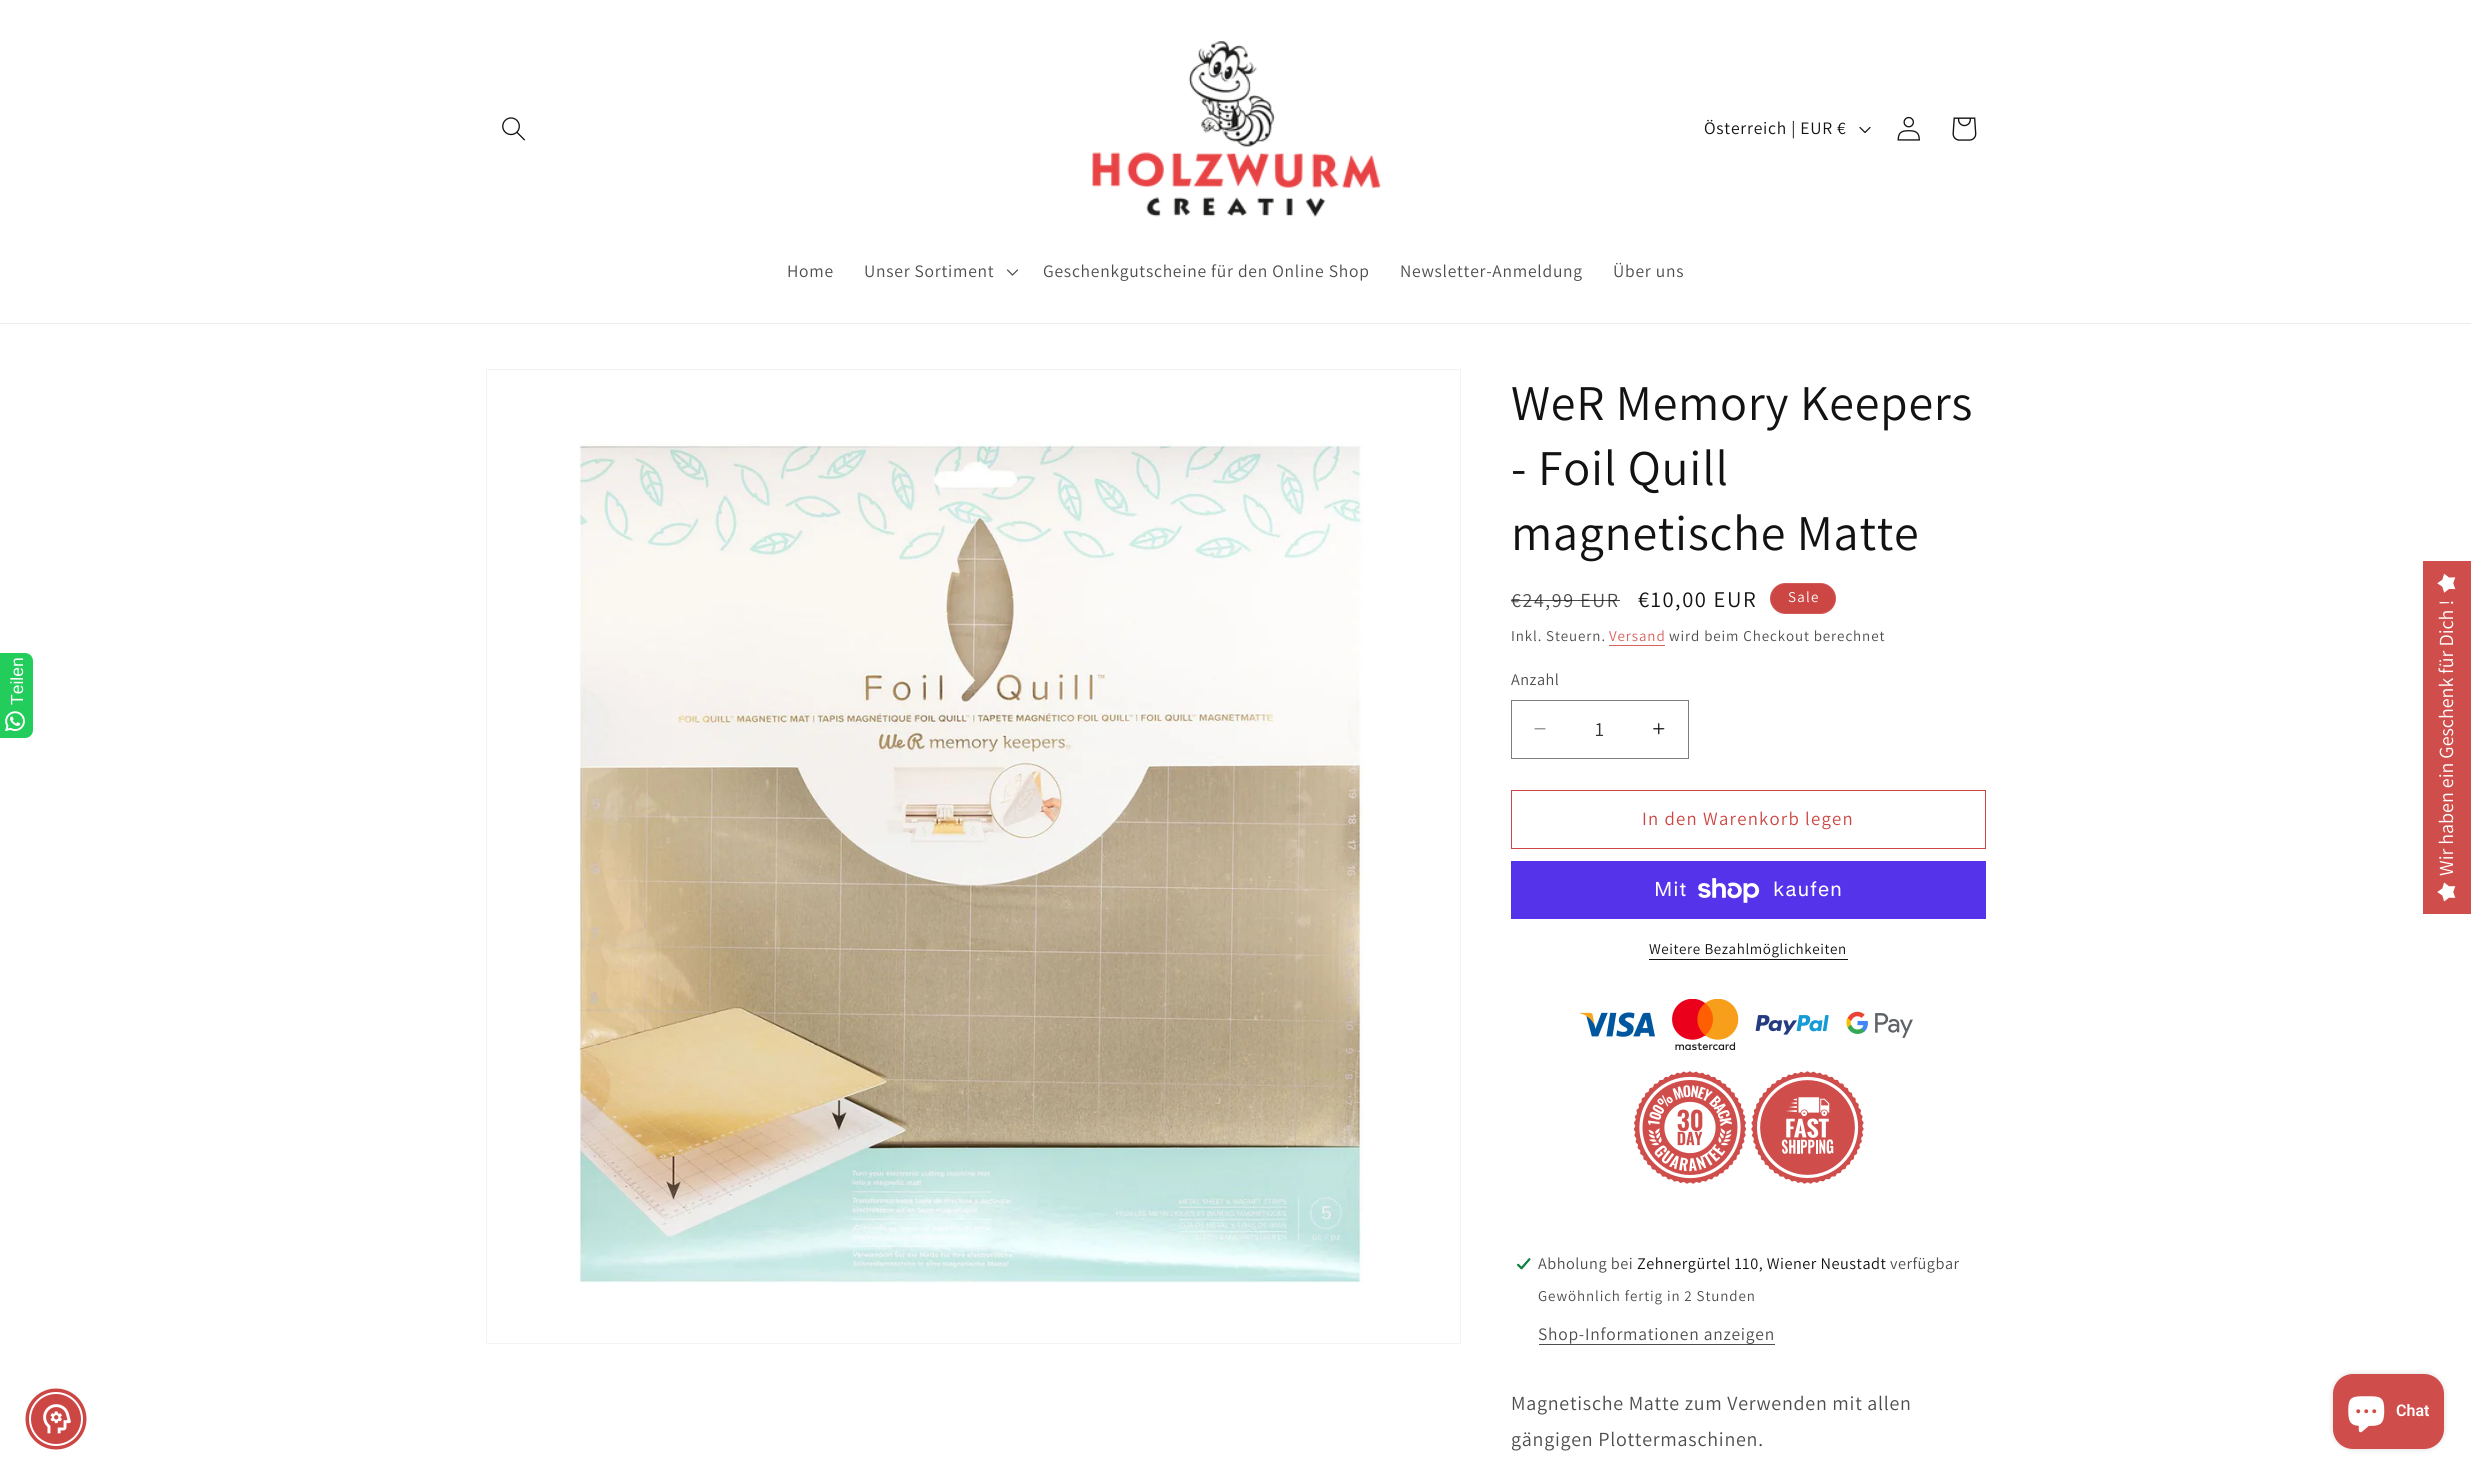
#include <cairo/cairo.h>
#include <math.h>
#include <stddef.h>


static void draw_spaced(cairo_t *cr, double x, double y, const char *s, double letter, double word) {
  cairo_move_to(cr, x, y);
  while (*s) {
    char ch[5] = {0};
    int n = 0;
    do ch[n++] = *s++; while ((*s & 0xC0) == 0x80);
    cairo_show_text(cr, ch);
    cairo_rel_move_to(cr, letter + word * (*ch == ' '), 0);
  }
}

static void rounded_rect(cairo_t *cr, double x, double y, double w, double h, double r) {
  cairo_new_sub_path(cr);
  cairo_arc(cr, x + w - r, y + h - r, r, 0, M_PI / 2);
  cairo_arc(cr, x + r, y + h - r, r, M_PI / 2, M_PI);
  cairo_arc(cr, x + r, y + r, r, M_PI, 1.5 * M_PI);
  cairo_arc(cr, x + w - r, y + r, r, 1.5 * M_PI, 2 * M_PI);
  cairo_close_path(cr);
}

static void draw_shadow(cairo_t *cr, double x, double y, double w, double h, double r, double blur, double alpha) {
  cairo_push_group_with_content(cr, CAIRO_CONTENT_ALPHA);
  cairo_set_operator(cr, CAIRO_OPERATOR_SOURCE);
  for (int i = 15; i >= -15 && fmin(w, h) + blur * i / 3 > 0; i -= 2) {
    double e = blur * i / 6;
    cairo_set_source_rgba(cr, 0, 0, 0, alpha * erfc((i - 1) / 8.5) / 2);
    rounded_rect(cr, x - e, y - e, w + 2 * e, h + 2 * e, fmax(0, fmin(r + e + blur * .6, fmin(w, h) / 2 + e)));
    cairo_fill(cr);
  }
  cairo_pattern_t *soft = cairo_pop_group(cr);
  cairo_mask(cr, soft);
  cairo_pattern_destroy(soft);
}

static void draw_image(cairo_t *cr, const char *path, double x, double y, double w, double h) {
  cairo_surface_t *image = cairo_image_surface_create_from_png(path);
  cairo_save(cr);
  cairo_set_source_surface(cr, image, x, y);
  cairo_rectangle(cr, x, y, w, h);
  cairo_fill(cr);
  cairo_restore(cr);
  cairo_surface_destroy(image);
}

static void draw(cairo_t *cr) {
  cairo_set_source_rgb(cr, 1, 1, 1);
  cairo_paint(cr);
  cairo_set_source_rgb(cr, 236 / 255.0, 236 / 255.0, 236 / 255.0);
  cairo_rectangle(cr, 0, 323, 2471, 1);
  cairo_fill(cr);
  draw_image(cr, "images/1.png", 502, 117, 23, 24);
  draw_image(cr, "images/2.png", 1092, 41, 289, 176);
  draw_image(cr, "images/3.png", 1859, 127, 12, 6);
  draw_image(cr, "images/4.png", 1897, 116, 23, 25);
  draw_image(cr, "images/5.png", 1952, 117, 25, 24);
  draw_image(cr, "images/6.png", 1007, 269, 11, 7);
  cairo_set_source_rgb(cr, 34 / 255.0, 205 / 255.0, 91 / 255.0);
  cairo_new_path(cr);
  cairo_move_to(cr, 0, 653);
  cairo_line_to(cr, 25, 653);
  cairo_curve_to(cr, 29.5, 653, 33, 656.5, 33, 661);
  cairo_line_to(cr, 33, 730);
  cairo_curve_to(cr, 33, 734.5, 29.5, 738, 25, 738);
  cairo_line_to(cr, 0, 738);
  cairo_close_path(cr);
  cairo_fill(cr);
  draw_image(cr, "images/7.png", 5, 711, 20, 20);
  cairo_rectangle(cr, 486.5, 369.5, 974, 974);
  cairo_set_source_rgb(cr, 243 / 255.0, 243 / 255.0, 243 / 255.0);
  cairo_set_line_width(cr, 1);
  cairo_stroke(cr);
  draw_image(cr, "images/8.png", 579, 441, 785, 842);
  cairo_set_source_rgb(cr, 204 / 255.0, 71 / 255.0, 68 / 255.0);
  rounded_rect(cr, 1770, 583, 66, 31, 15.5);
  cairo_fill(cr);
  rounded_rect(cr, 1770.5, 583.5, 65, 30, 15);
  cairo_set_source_rgba(cr, 1, 1, 1, 0.1);
  cairo_stroke(cr);
  cairo_set_source_rgb(cr, 212 / 255.0, 99 / 255.0, 96 / 255.0);
  cairo_rectangle(cr, 1609, 645, 56, 1);
  cairo_fill(cr);
  draw_image(cr, "images/9.png", 1534, 728, 12, 2);
  draw_image(cr, "images/10.png", 1653, 723, 12, 12);
  cairo_rectangle(cr, 1511.5, 700.5, 177, 58);
  cairo_set_source_rgb(cr, 125 / 255.0, 125 / 255.0, 125 / 255.0);
  cairo_stroke(cr);
  cairo_rectangle(cr, 1511.5, 790.5, 474, 58);
  cairo_set_source_rgb(cr, 204 / 255.0, 71 / 255.0, 68 / 255.0);
  cairo_stroke(cr);
  cairo_set_source_rgb(cr, 84 / 255.0, 51 / 255.0, 235 / 255.0);
  cairo_rectangle(cr, 1511, 861, 475, 58);
  cairo_fill(cr);
  draw_image(cr, "images/11.png", 1698, 878, 62, 25);
  cairo_set_source_rgb(cr, 18 / 255.0, 18 / 255.0, 18 / 255.0);
  cairo_rectangle(cr, 1649, 959, 199, 1);
  cairo_fill(cr);
  draw_image(cr, "images/12.png", 1580, 1012, 75, 25);
  draw_image(cr, "images/13.png", 1672, 999, 67, 51);
  draw_image(cr, "images/14.png", 1755, 1015, 74, 20);
  draw_image(cr, "images/15.png", 1846, 1011, 67, 27);
  draw_image(cr, "images/16.png", 1634, 1071, 112, 113);
  draw_image(cr, "images/17.png", 1751, 1071, 113, 113);
  draw_image(cr, "images/18.png", 1516, 1257, 15, 13);
  cairo_set_source_rgb(cr, 77 / 255.0, 77 / 255.0, 77 / 255.0);
  cairo_rectangle(cr, 1539, 1344, 236, 1);
  cairo_fill(cr);
  cairo_set_source_rgb(cr, 207 / 255.0, 78 / 255.0, 75 / 255.0);
  cairo_rectangle(cr, 2423, 561, 48, 353);
  cairo_fill(cr);
  draw_image(cr, "images/19.png", 2437, 573, 19, 20);
  draw_image(cr, "images/20.png", 2437, 882, 19, 20);
  cairo_set_source_rgb(cr, 204 / 255.0, 70 / 255.0, 68 / 255.0);
  cairo_arc(cr, 56, 1419, 30.5, 0, 2 * M_PI);
  cairo_fill(cr);
  cairo_set_source_rgb(cr, 1, 1, 1);
  cairo_arc(cr, 56, 1419, 27, 0, 2 * M_PI);
  cairo_fill(cr);
  cairo_set_source_rgb(cr, 204 / 255.0, 70 / 255.0, 68 / 255.0);
  cairo_arc(cr, 56, 1419, 25, 0, 2 * M_PI);
  cairo_fill(cr);
  draw_image(cr, "images/21.png", 43, 1404, 28, 30);
  cairo_set_source_rgb(cr, 0, 0, 0);
  draw_shadow(cr, 2333, 1374, 111, 75, 20, 3, 0.15);
  cairo_set_source_rgb(cr, 207 / 255.0, 78 / 255.0, 75 / 255.0);
  rounded_rect(cr, 2333, 1374, 111, 75, 20);
  cairo_fill(cr);
  draw_image(cr, "images/22.png", 2348, 1396, 37, 37);
  cairo_select_font_face(cr, "Assistant", CAIRO_FONT_SLANT_NORMAL, CAIRO_FONT_WEIGHT_NORMAL);
  cairo_set_font_size(cr, 17.5);
  cairo_set_source_rgb(cr, 18 / 255.0, 18 / 255.0, 18 / 255.0);
  draw_spaced(cr, 1704, 134, "Österreich | EUR €", 0.75, 0);
  cairo_set_source_rgb(cr, 77 / 255.0, 77 / 255.0, 77 / 255.0);
  draw_spaced(cr, 787, 277, "Home", 0.75, 0);
  draw_spaced(cr, 864, 277, "Unser Sortiment", 0.75, 0);
  draw_spaced(cr, 1043, 277, "Geschenkgutscheine für den Online Shop", 0.75, 0);
  draw_spaced(cr, 1400, 277, "Newsletter-Anmeldung", 0.75, 0);
  draw_spaced(cr, 1613, 277, "Über uns", 0.75, 0);
  cairo_select_font_face(cr, "Liberation Sans", CAIRO_FONT_SLANT_NORMAL, CAIRO_FONT_WEIGHT_NORMAL);
  cairo_set_source_rgb(cr, 1, 1, 1);
  cairo_save(cr);
  cairo_translate(cr, 23, 705);
  cairo_rotate(cr, -90 * M_PI / 180);
  cairo_move_to(cr, 0, 0);
  cairo_show_text(cr, "Teilen");
  cairo_restore(cr);
  cairo_select_font_face(cr, "Assistant", CAIRO_FONT_SLANT_NORMAL, CAIRO_FONT_WEIGHT_NORMAL);
  cairo_set_font_size(cr, 50);
  cairo_set_source_rgb(cr, 18 / 255.0, 18 / 255.0, 18 / 255.0);
  draw_spaced(cr, 1511, 420, "WeR Memory Keepers", 0.75, 0);
  draw_spaced(cr, 1511, 485, "- Foil Quill", 0.75, 0);
  draw_spaced(cr, 1511, 550, "magnetische Matte", 0.75, 0);
  cairo_set_font_size(cr, 20);
  cairo_set_source_rgb(cr, 77 / 255.0, 77 / 255.0, 77 / 255.0);
  draw_spaced(cr, 1511, 607, "€24,99 EUR", 1.6, 0);
  cairo_set_source_rgba(cr, 18 / 255.0, 18 / 255.0, 18 / 255.0, 0.75);
  cairo_rectangle(cr, 1511, 600, 109, 1);
  cairo_fill(cr);
  cairo_set_font_size(cr, 22.5);
  cairo_set_source_rgb(cr, 18 / 255.0, 18 / 255.0, 18 / 255.0);
  draw_spaced(cr, 1638, 607, "€10,00 EUR", 1.6, 0);
  cairo_set_font_size(cr, 15);
  cairo_set_source_rgb(cr, 1, 1, 1);
  draw_spaced(cr, 1788, 602, "Sale", 1.25, 0);
  cairo_set_source_rgb(cr, 77 / 255.0, 77 / 255.0, 77 / 255.0);
  draw_spaced(cr, 1511, 641, "Inkl. Steuern.", 0.9, 0);
  cairo_set_source_rgb(cr, 212 / 255.0, 99 / 255.0, 96 / 255.0);
  draw_spaced(cr, 1609, 641, "Versand", 0.9, 0);
  cairo_set_source_rgb(cr, 77 / 255.0, 77 / 255.0, 77 / 255.0);
  draw_spaced(cr, 1669, 641, "wird beim Checkout berechnet", 0.9, 0);
  cairo_set_font_size(cr, 16.25);
  draw_spaced(cr, 1511, 685, "Anzahl", 0.5, 0);
  cairo_set_font_size(cr, 20);
  cairo_set_source_rgb(cr, 54 / 255.0, 54 / 255.0, 54 / 255.0);
  cairo_move_to(cr, 1595, 736);
  cairo_show_text(cr, "1");
  cairo_set_font_size(cr, 18.75);
  cairo_set_source_rgb(cr, 204 / 255.0, 71 / 255.0, 68 / 255.0);
  draw_spaced(cr, 1642, 825, "In den Warenkorb legen", 1.25, 0);
  cairo_select_font_face(cr, "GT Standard", CAIRO_FONT_SLANT_NORMAL, CAIRO_FONT_WEIGHT_NORMAL);
  cairo_set_font_size(cr, 20);
  cairo_set_source_rgb(cr, 1, 1, 1);
  draw_spaced(cr, 1654, 896, "Mit", 0.75, 0);
  draw_spaced(cr, 1773, 896, "kaufen", 0.75, 0);
  cairo_select_font_face(cr, "Assistant", CAIRO_FONT_SLANT_NORMAL, CAIRO_FONT_WEIGHT_NORMAL);
  cairo_set_font_size(cr, 15);
  cairo_set_source_rgb(cr, 18 / 255.0, 18 / 255.0, 18 / 255.0);
  draw_spaced(cr, 1649, 954, "Weitere Bezahlmöglichkeiten", 0.6, 0);
  cairo_set_font_size(cr, 16.25);
  cairo_set_source_rgb(cr, 77 / 255.0, 77 / 255.0, 77 / 255.0);
  draw_spaced(cr, 1538, 1269, "Abholung bei", 0.5, 0);
  cairo_set_source_rgb(cr, 18 / 255.0, 18 / 255.0, 18 / 255.0);
  draw_spaced(cr, 1637, 1269, "Zehnergürtel 110, Wiener Neustadt", 0.5, 0);
  cairo_set_source_rgb(cr, 77 / 255.0, 77 / 255.0, 77 / 255.0);
  draw_spaced(cr, 1890, 1269, "verfügbar", 0.5, 0);
  cairo_set_font_size(cr, 15);
  draw_spaced(cr, 1538, 1301, "Gewöhnlich fertig in 2 Stunden", 0.9, 0);
  cairo_set_font_size(cr, 17.5);
  draw_spaced(cr, 1538, 1340, "Shop-Informationen anzeigen", 0.75, 0);
  cairo_set_font_size(cr, 20);
  draw_spaced(cr, 1511, 1410, "Magnetische Matte zum Verwenden mit allen", 0.75, 0);
  draw_spaced(cr, 1511, 1446, "gängigen Plottermaschinen.", 0.75, 0);
  cairo_set_source_rgb(cr, 1, 1, 1);
  cairo_save(cr);
  cairo_translate(cr, 2453, 876);
  cairo_rotate(cr, -90 * M_PI / 180);
  cairo_move_to(cr, 0, 0);
  cairo_show_text(cr, "Wir haben ein Geschenk für Dich !");
  cairo_restore(cr);
  cairo_select_font_face(cr, "Roboto SemiBold", CAIRO_FONT_SLANT_NORMAL, CAIRO_FONT_WEIGHT_NORMAL);
  cairo_set_font_size(cr, 16);
  cairo_move_to(cr, 2396, 1416);
  cairo_show_text(cr, "Chat");
}

int main(void) {
  cairo_surface_t *surface = cairo_image_surface_create(CAIRO_FORMAT_RGB24, 2471, 1475);
  cairo_t *cr = cairo_create(surface);
  cairo_font_options_t *options = cairo_font_options_create();
  cairo_font_options_set_hint_metrics(options, CAIRO_HINT_METRICS_OFF);
  cairo_font_options_set_hint_style(options, CAIRO_HINT_STYLE_NONE);
  cairo_set_font_options(cr, options);
  cairo_set_miter_limit(cr, 4);
  draw(cr);
  cairo_surface_write_to_png(surface, "out.png");
  cairo_font_options_destroy(options);
  cairo_destroy(cr);
  cairo_surface_destroy(surface);
  return 0;
}
